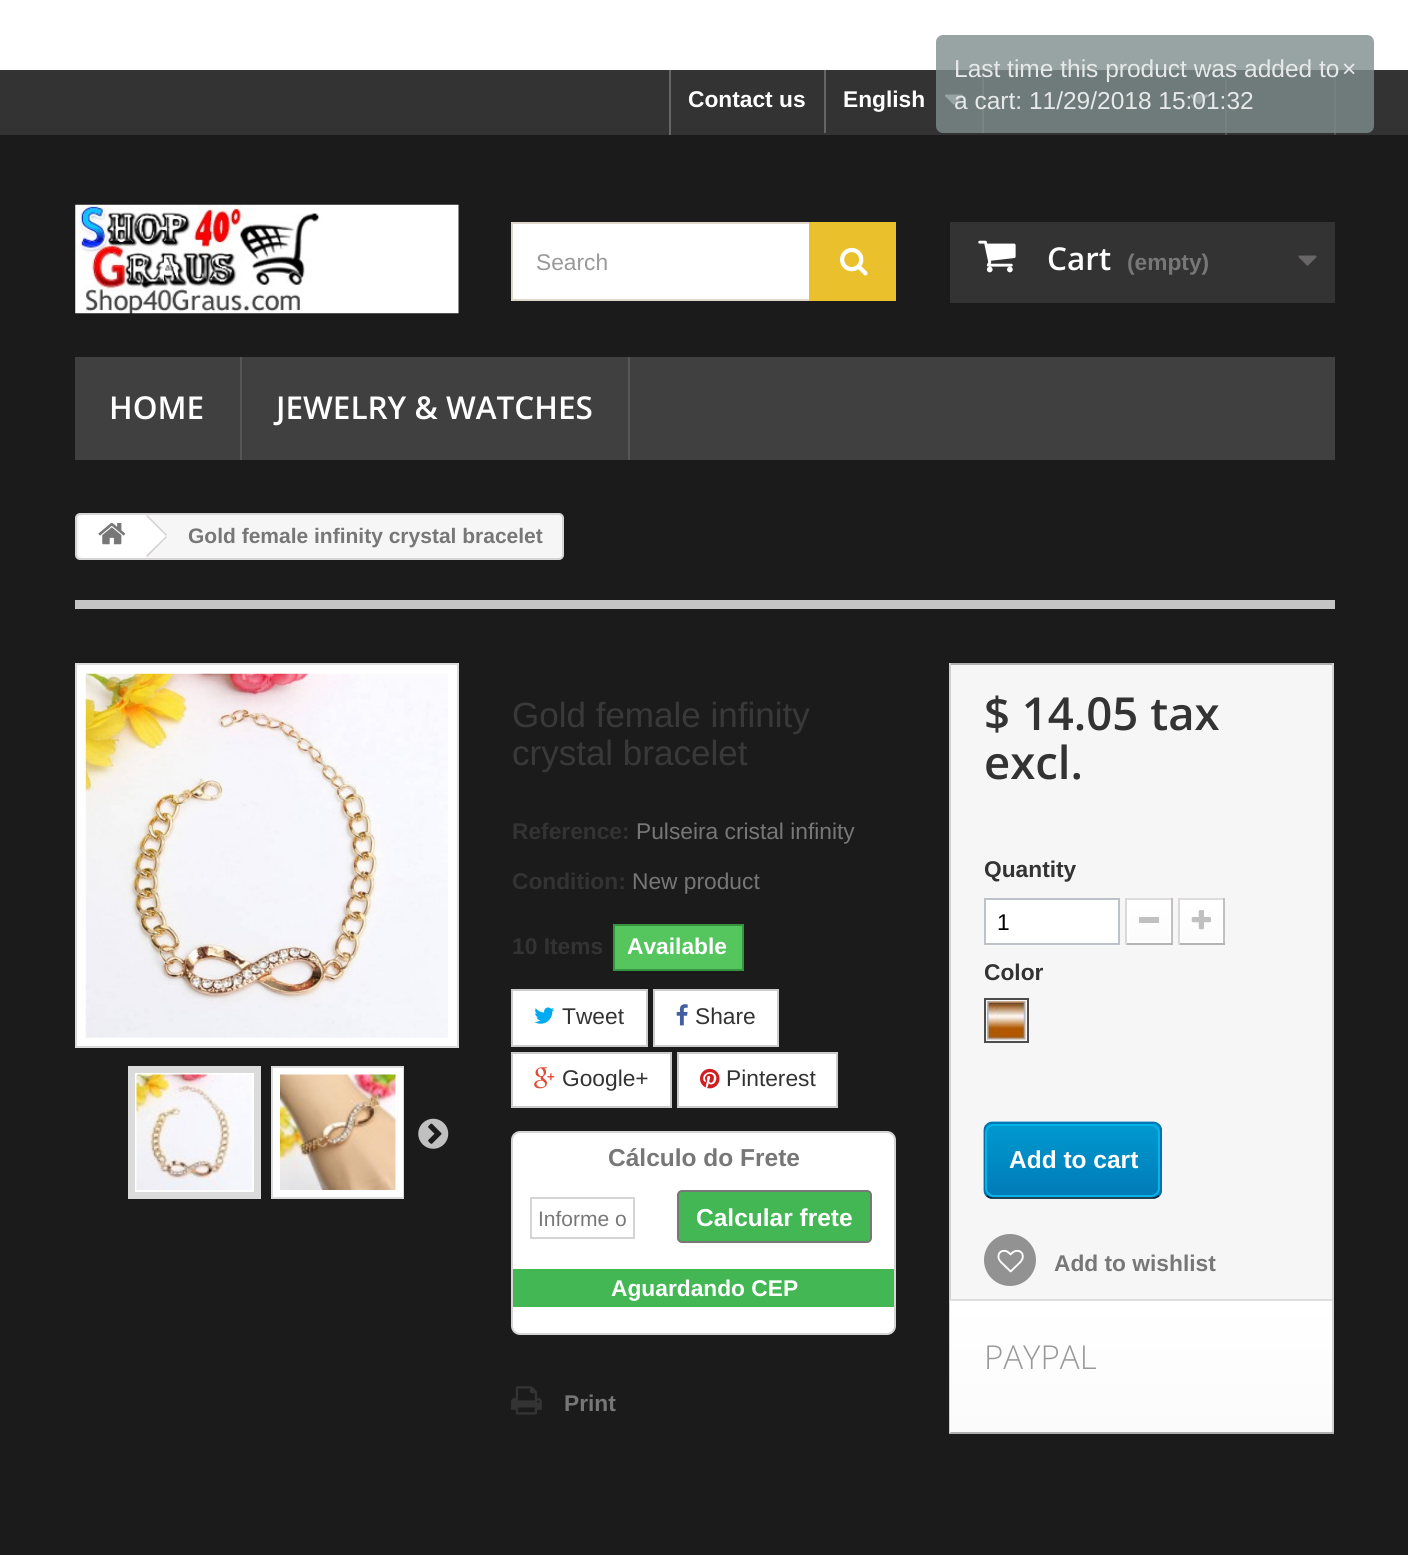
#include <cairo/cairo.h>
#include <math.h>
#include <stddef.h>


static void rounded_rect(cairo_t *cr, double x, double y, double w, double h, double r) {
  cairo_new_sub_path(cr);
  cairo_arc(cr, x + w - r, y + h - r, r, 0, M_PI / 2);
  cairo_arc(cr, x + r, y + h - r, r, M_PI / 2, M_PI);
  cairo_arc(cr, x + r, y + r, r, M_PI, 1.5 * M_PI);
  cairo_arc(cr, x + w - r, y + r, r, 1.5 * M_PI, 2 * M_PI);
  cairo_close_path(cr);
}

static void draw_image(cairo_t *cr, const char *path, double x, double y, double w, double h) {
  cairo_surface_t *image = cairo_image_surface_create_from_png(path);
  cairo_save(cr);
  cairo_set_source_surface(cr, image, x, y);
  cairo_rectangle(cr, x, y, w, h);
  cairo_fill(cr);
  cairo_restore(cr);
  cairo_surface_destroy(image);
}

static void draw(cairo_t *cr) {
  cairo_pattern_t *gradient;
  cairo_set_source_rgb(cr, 27 / 255.0, 27 / 255.0, 27 / 255.0);
  cairo_paint(cr);
  cairo_set_source_rgb(cr, 1, 1, 1);
  cairo_rectangle(cr, 0, 0, 1408, 70);
  cairo_fill(cr);
  cairo_set_source_rgb(cr, 51 / 255.0, 51 / 255.0, 51 / 255.0);
  cairo_rectangle(cr, 0, 70, 1408, 65);
  cairo_fill(cr);
  draw_image(cr, "images/1.png", 945, 94, 18, 11);
  cairo_set_source_rgb(cr, 101 / 255.0, 101 / 255.0, 101 / 255.0);
  cairo_rectangle(cr, 982, 70, 2, 63);
  cairo_fill(cr);
  draw_image(cr, "images/2.png", 1190, 94, 18, 11);
  cairo_set_source_rgb(cr, 81 / 255.0, 81 / 255.0, 81 / 255.0);
  cairo_rectangle(cr, 1334, 70, 2, 65);
  cairo_fill(cr);
  cairo_rectangle(cr, 1225, 70, 2, 65);
  cairo_fill(cr);
  cairo_set_source_rgba(cr, 127 / 255.0, 140 / 255.0, 141 / 255.0, 0.8);
  rounded_rect(cr, 936, 35, 438, 98, 7);
  cairo_fill(cr);
  cairo_set_source_rgb(cr, 101 / 255.0, 101 / 255.0, 101 / 255.0);
  cairo_rectangle(cr, 669, 70, 2, 65);
  cairo_fill(cr);
  cairo_rectangle(cr, 824, 70, 2, 63);
  cairo_fill(cr);
  draw_image(cr, "images/3.png", 75, 204, 384, 110);
  cairo_set_source_rgb(cr, 1, 1, 1);
  cairo_rectangle(cr, 513, 224, 296, 75);
  cairo_fill(cr);
  cairo_rectangle(cr, 512, 223, 383, 77);
  cairo_set_source_rgb(cr, 223 / 255.0, 216 / 255.0, 202 / 255.0);
  cairo_stroke(cr);
  cairo_set_source_rgb(cr, 234 / 255.0, 193 / 255.0, 45 / 255.0);
  cairo_rectangle(cr, 809, 222, 87, 79);
  cairo_fill(cr);
  draw_image(cr, "images/4.png", 840, 247, 28, 29);
  cairo_set_source_rgb(cr, 51 / 255.0, 51 / 255.0, 51 / 255.0);
  cairo_rectangle(cr, 950, 222, 385, 81);
  cairo_fill(cr);
  draw_image(cr, "images/5.png", 978, 240, 38, 33);
  draw_image(cr, "images/6.png", 1298, 255, 19, 11);
  cairo_set_source_rgb(cr, 64 / 255.0, 64 / 255.0, 64 / 255.0);
  cairo_rectangle(cr, 75, 357, 1260, 103);
  cairo_fill(cr);
  cairo_set_source_rgb(cr, 86 / 255.0, 86 / 255.0, 86 / 255.0);
  cairo_rectangle(cr, 240, 357, 2, 103);
  cairo_fill(cr);
  cairo_rectangle(cr, 628, 357, 2, 103);
  cairo_fill(cr);
  cairo_set_source_rgb(cr, 246 / 255.0, 246 / 255.0, 246 / 255.0);
  rounded_rect(cr, 76, 514, 487, 45, 4);
  cairo_fill_preserve(cr);
  cairo_set_source_rgb(cr, 214 / 255.0, 212 / 255.0, 212 / 255.0);
  cairo_stroke(cr);
  cairo_set_source_rgb(cr, 1, 1, 1);
  cairo_new_path(cr);
  cairo_move_to(cr, 84, 515);
  cairo_line_to(cr, 145, 515);
  cairo_line_to(cr, 145, 558);
  cairo_line_to(cr, 84, 558);
  cairo_curve_to(cr, 81, 558, 79, 556, 79, 553);
  cairo_line_to(cr, 79, 520);
  cairo_curve_to(cr, 79, 517, 81, 515, 84, 515);
  cairo_close_path(cr);
  cairo_fill(cr);
  cairo_new_path(cr);
  cairo_move_to(cr, 149, 516);
  cairo_line_to(cr, 166, 533);
  cairo_curve_to(cr, 167, 535, 167, 537, 166, 538);
  cairo_line_to(cr, 149, 556);
  cairo_curve_to(cr, 147, 557, 145, 557, 144, 556);
  cairo_line_to(cr, 126, 538);
  cairo_curve_to(cr, 125, 537, 125, 535, 126, 533);
  cairo_line_to(cr, 144, 516);
  cairo_curve_to(cr, 145, 515, 147, 515, 149, 516);
  cairo_close_path(cr);
  cairo_fill(cr);
  draw_image(cr, "images/7.png", 98, 523, 28, 22);
  cairo_set_source_rgb(cr, 214 / 255.0, 212 / 255.0, 212 / 255.0);
  cairo_new_path(cr);
  cairo_move_to(cr, 147.5, 515);
  cairo_line_to(cr, 167, 534.5);
  cairo_line_to(cr, 166, 536);
  cairo_line_to(cr, 146, 516);
  cairo_close_path(cr);
  cairo_move_to(cr, 166, 536);
  cairo_line_to(cr, 167, 537);
  cairo_line_to(cr, 147.5, 557);
  cairo_line_to(cr, 146, 555.5);
  cairo_close_path(cr);
  cairo_fill(cr);
  cairo_set_source_rgb(cr, 196 / 255.0, 196 / 255.0, 196 / 255.0);
  cairo_rectangle(cr, 75, 600, 1260, 9);
  cairo_fill(cr);
  cairo_set_source_rgb(cr, 1, 1, 1);
  cairo_rectangle(cr, 76, 664, 382, 383);
  cairo_fill_preserve(cr);
  cairo_set_source_rgb(cr, 219 / 255.0, 219 / 255.0, 219 / 255.0);
  cairo_stroke(cr);
  draw_image(cr, "images/8.png", 85, 673, 363, 365);
  cairo_rectangle(cr, 129, 1067, 131, 131);
  cairo_stroke(cr);
  cairo_rectangle(cr, 132.5, 1070.5, 124, 124);
  cairo_set_line_width(cr, 5);
  cairo_stroke(cr);
  cairo_rectangle(cr, 136, 1074, 117, 117);
  cairo_set_source_rgb(cr, 1, 1, 1);
  cairo_set_line_width(cr, 2);
  cairo_stroke(cr);
  draw_image(cr, "images/9.png", 136, 1074, 116, 116);
  cairo_rectangle(cr, 272, 1067, 131, 131);
  cairo_set_source_rgb(cr, 219 / 255.0, 219 / 255.0, 219 / 255.0);
  cairo_stroke(cr);
  cairo_set_source_rgb(cr, 251 / 255.0, 251 / 255.0, 251 / 255.0);
  cairo_rectangle(cr, 397, 1073, 1, 119);
  cairo_fill(cr);
  cairo_rectangle(cr, 275.5, 1070.5, 125, 124);
  cairo_set_source_rgb(cr, 1, 1, 1);
  cairo_set_line_width(cr, 5);
  cairo_stroke(cr);
  cairo_rectangle(cr, 279, 1074, 117, 117);
  cairo_set_line_width(cr, 2);
  cairo_stroke(cr);
  draw_image(cr, "images/10.png", 280, 1074, 116, 116);
  draw_image(cr, "images/11.png", 418, 1118, 31, 31);
  cairo_set_source_rgb(cr, 85 / 255.0, 198 / 255.0, 94 / 255.0);
  cairo_rectangle(cr, 614, 925, 129, 45);
  cairo_fill_preserve(cr);
  cairo_set_source_rgb(cr, 54 / 255.0, 148 / 255.0, 62 / 255.0);
  cairo_stroke(cr);
  cairo_set_source_rgb(cr, 1, 1, 1);
  cairo_rectangle(cr, 512, 990, 135, 56);
  cairo_fill_preserve(cr);
  cairo_set_source_rgb(cr, 204 / 255.0, 204 / 255.0, 204 / 255.0);
  cairo_stroke(cr);
  draw_image(cr, "images/12.png", 534, 1007, 21, 17);
  cairo_set_source_rgb(cr, 1, 1, 1);
  cairo_rectangle(cr, 654, 990, 124, 56);
  cairo_fill_preserve(cr);
  cairo_set_source_rgb(cr, 204 / 255.0, 204 / 255.0, 204 / 255.0);
  cairo_stroke(cr);
  draw_image(cr, "images/13.png", 676, 1004, 12, 22);
  cairo_set_source_rgb(cr, 1, 1, 1);
  cairo_rectangle(cr, 512, 1053, 159, 54);
  cairo_fill_preserve(cr);
  cairo_set_source_rgb(cr, 204 / 255.0, 204 / 255.0, 204 / 255.0);
  cairo_stroke(cr);
  draw_image(cr, "images/14.png", 534, 1067, 21, 22);
  cairo_set_source_rgb(cr, 1, 1, 1);
  cairo_rectangle(cr, 678, 1053, 159, 54);
  cairo_fill_preserve(cr);
  cairo_set_source_rgb(cr, 204 / 255.0, 204 / 255.0, 204 / 255.0);
  cairo_stroke(cr);
  draw_image(cr, "images/15.png", 700, 1068, 20, 21);
  cairo_set_source_rgb(cr, 1, 1, 1);
  rounded_rect(cr, 512, 1132, 383, 202, 8);
  cairo_fill_preserve(cr);
  cairo_set_source_rgb(cr, 214 / 255.0, 212 / 255.0, 212 / 255.0);
  cairo_stroke(cr);
  cairo_rectangle(cr, 531, 1198, 103, 40);
  cairo_stroke(cr);
  cairo_set_source_rgb(cr, 67 / 255.0, 183 / 255.0, 84 / 255.0);
  rounded_rect(cr, 678, 1191, 193, 51, 4);
  cairo_fill_preserve(cr);
  cairo_set_source_rgb(cr, 119 / 255.0, 119 / 255.0, 119 / 255.0);
  cairo_stroke(cr);
  cairo_set_source_rgb(cr, 67 / 255.0, 183 / 255.0, 84 / 255.0);
  cairo_rectangle(cr, 513, 1269, 381, 38);
  cairo_fill(cr);
  draw_image(cr, "images/16.png", 511, 1386, 31, 29);
  cairo_set_source_rgb(cr, 246 / 255.0, 246 / 255.0, 246 / 255.0);
  cairo_rectangle(cr, 951, 665, 381, 634);
  cairo_fill(cr);
  cairo_set_source_rgb(cr, 176 / 255.0, 175 / 255.0, 175 / 255.0);
  cairo_rectangle(cr, 949, 663, 385, 2);
  cairo_fill(cr);
  cairo_set_source_rgb(cr, 210 / 255.0, 208 / 255.0, 208 / 255.0);
  cairo_rectangle(cr, 1332, 663, 2, 770);
  cairo_fill(cr);
  cairo_set_source_rgb(cr, 176 / 255.0, 175 / 255.0, 175 / 255.0);
  cairo_rectangle(cr, 949, 1432, 385, 2);
  cairo_fill(cr);
  cairo_set_source_rgb(cr, 210 / 255.0, 208 / 255.0, 208 / 255.0);
  cairo_rectangle(cr, 949, 663, 2, 770);
  cairo_fill(cr);
  cairo_set_source_rgb(cr, 1, 1, 1);
  cairo_rectangle(cr, 985, 899, 134, 45);
  cairo_fill_preserve(cr);
  cairo_set_source_rgb(cr, 189 / 255.0, 194 / 255.0, 201 / 255.0);
  cairo_stroke(cr);
  cairo_set_source_rgb(cr, 222 / 255.0, 220 / 255.0, 220 / 255.0);
  cairo_rectangle(cr, 1125, 898, 48, 2);
  cairo_fill(cr);
  cairo_set_source_rgb(cr, 193 / 255.0, 191 / 255.0, 191 / 255.0);
  cairo_rectangle(cr, 1171, 898, 2, 47);
  cairo_fill(cr);
  cairo_set_source_rgb(cr, 181 / 255.0, 180 / 255.0, 180 / 255.0);
  cairo_rectangle(cr, 1125, 943, 48, 2);
  cairo_fill(cr);
  cairo_set_source_rgb(cr, 218 / 255.0, 216 / 255.0, 216 / 255.0);
  cairo_rectangle(cr, 1125, 898, 2, 47);
  cairo_fill(cr);
  gradient = cairo_pattern_create_linear(1149, 901, 1149, 942);
  cairo_pattern_add_color_stop_rgba(gradient, 0, 1, 1, 1, 1);
  cairo_pattern_add_color_stop_rgba(gradient, 1, 251 / 255.0, 251 / 255.0, 251 / 255.0, 1);
  cairo_set_source(cr, gradient);
  cairo_pattern_destroy(gradient);
  cairo_rectangle(cr, 1129, 902, 40, 39);
  cairo_fill(cr);
  cairo_rectangle(cr, 1128, 901, 42, 41);
  cairo_set_source_rgb(cr, 1, 1, 1);
  cairo_stroke(cr);
  cairo_set_source_rgb(cr, 192 / 255.0, 192 / 255.0, 192 / 255.0);
  cairo_rectangle(cr, 1139, 917, 20, 6);
  cairo_fill(cr);
  cairo_set_source_rgb(cr, 222 / 255.0, 220 / 255.0, 220 / 255.0);
  cairo_rectangle(cr, 1178, 898, 47, 2);
  cairo_fill(cr);
  cairo_set_source_rgb(cr, 193 / 255.0, 191 / 255.0, 191 / 255.0);
  cairo_rectangle(cr, 1223, 898, 2, 47);
  cairo_fill(cr);
  cairo_set_source_rgb(cr, 181 / 255.0, 180 / 255.0, 180 / 255.0);
  cairo_rectangle(cr, 1178, 943, 47, 2);
  cairo_fill(cr);
  cairo_set_source_rgb(cr, 218 / 255.0, 216 / 255.0, 216 / 255.0);
  cairo_rectangle(cr, 1178, 898, 2, 47);
  cairo_fill(cr);
  gradient = cairo_pattern_create_linear(1201, 901, 1201, 942);
  cairo_pattern_add_color_stop_rgba(gradient, 0, 1, 1, 1, 1);
  cairo_pattern_add_color_stop_rgba(gradient, 1, 251 / 255.0, 251 / 255.0, 251 / 255.0, 1);
  cairo_set_source(cr, gradient);
  cairo_pattern_destroy(gradient);
  cairo_rectangle(cr, 1182, 902, 39, 39);
  cairo_fill(cr);
  cairo_rectangle(cr, 1181, 901, 41, 41);
  cairo_set_source_rgb(cr, 1, 1, 1);
  cairo_stroke(cr);
  draw_image(cr, "images/17.png", 1191, 910, 20, 20);
  cairo_rectangle(cr, 985, 999, 43, 43);
  cairo_set_source_rgb(cr, 77 / 255.0, 77 / 255.0, 77 / 255.0);
  cairo_stroke(cr);
  draw_image(cr, "images/18.png", 987, 1001, 39, 39);
  cairo_save(cr);
  rounded_rect(cr, 984, 1122, 178, 77, 9);
  cairo_clip(cr);
  gradient = cairo_pattern_create_linear(1073, 1050, 1073, 1124);
  cairo_pattern_add_color_stop_rgba(gradient, 0, 0, 154 / 255.0, 208 / 255.0, 1);
  cairo_pattern_add_color_stop_rgba(gradient, 1, 0, 122 / 255.0, 183 / 255.0, 1);
  cairo_set_source(cr, gradient);
  cairo_pattern_destroy(gradient);
  cairo_rectangle(cr, 984, 1122, 178, 2);
  cairo_fill(cr);
  gradient = cairo_pattern_create_linear(1073, 1124, 1073, 1197);
  cairo_pattern_add_color_stop_rgba(gradient, 0, 0, 154 / 255.0, 208 / 255.0, 1);
  cairo_pattern_add_color_stop_rgba(gradient, 1, 0, 122 / 255.0, 183 / 255.0, 1);
  cairo_set_source(cr, gradient);
  cairo_pattern_destroy(gradient);
  cairo_rectangle(cr, 984, 1124, 178, 73);
  cairo_fill(cr);
  cairo_restore(cr);
  cairo_new_path(cr);
  cairo_move_to(cr, 986.5, 1125);
  cairo_curve_to(cr, 988, 1123.5, 990, 1122.5, 992, 1122.5);
  cairo_line_to(cr, 1153, 1122.5);
  cairo_curve_to(cr, 1155.5, 1122.5, 1157.5, 1123.5, 1159, 1125);
  cairo_set_source_rgb(cr, 0, 121 / 255.0, 182 / 255.0);
  cairo_set_line_width(cr, 1.8);
  cairo_stroke(cr);
  cairo_new_path(cr);
  cairo_move_to(cr, 1159, 1125);
  cairo_curve_to(cr, 1160.5, 1126.5, 1161, 1128.5, 1161, 1130.5);
  cairo_line_to(cr, 1161, 1190);
  cairo_curve_to(cr, 1161, 1192, 1160.5, 1194, 1159, 1195.5);
  cairo_set_source_rgb(cr, 0, 111 / 255.0, 168 / 255.0);
  cairo_stroke(cr);
  cairo_new_path(cr);
  cairo_move_to(cr, 1159, 1195.5);
  cairo_curve_to(cr, 1157.5, 1197, 1155.5, 1198, 1153, 1198);
  cairo_line_to(cr, 992, 1198);
  cairo_curve_to(cr, 990, 1198, 988, 1197, 986.5, 1195.5);
  cairo_set_source_rgb(cr, 1 / 255.0, 39 / 255.0, 64 / 255.0);
  cairo_stroke(cr);
  cairo_new_path(cr);
  cairo_move_to(cr, 986.5, 1195.5);
  cairo_curve_to(cr, 985, 1194, 984.5, 1192, 984.5, 1190);
  cairo_line_to(cr, 984.5, 1130.5);
  cairo_curve_to(cr, 984.5, 1128.5, 985, 1126.5, 986.5, 1125);
  cairo_set_source_rgb(cr, 0, 111 / 255.0, 168 / 255.0);
  cairo_stroke(cr);
  rounded_rect(cr, 986, 1125, 173, 71, 8);
  cairo_set_source_rgb(cr, 6 / 255.0, 178 / 255.0, 230 / 255.0);
  cairo_set_line_width(cr, 2);
  cairo_stroke(cr);
  cairo_set_source_rgb(cr, 146 / 255.0, 146 / 255.0, 146 / 255.0);
  cairo_arc(cr, 1010, 1260, 26, 0, 2 * M_PI);
  cairo_fill(cr);
  draw_image(cr, "images/19.png", 997, 1249, 27, 24);
  gradient = cairo_pattern_create_linear(1141, 1300, 1141, 1432);
  cairo_pattern_add_color_stop_rgba(gradient, 0, 1, 1, 1, 1);
  cairo_pattern_add_color_stop_rgba(gradient, 1, 251 / 255.0, 251 / 255.0, 251 / 255.0, 1);
  cairo_set_source(cr, gradient);
  cairo_pattern_destroy(gradient);
  cairo_rectangle(cr, 950, 1301, 382, 131);
  cairo_fill(cr);
  cairo_set_source_rgb(cr, 223 / 255.0, 222 / 255.0, 222 / 255.0);
  cairo_rectangle(cr, 950, 1299, 382, 2);
  cairo_fill(cr);
  cairo_select_font_face(cr, "Liberation Sans", CAIRO_FONT_SLANT_NORMAL, CAIRO_FONT_WEIGHT_NORMAL);
  cairo_set_font_size(cr, 24.5);
  cairo_set_source_rgb(cr, 231 / 255.0, 233 / 255.0, 233 / 255.0);
  cairo_move_to(cr, 954, 77);
  cairo_show_text(cr, "Last time this product was added to");
  cairo_move_to(cr, 954, 109);
  cairo_show_text(cr, "a cart: 11/29/2018 15:01:32");
  cairo_move_to(cr, 1342, 77);
  cairo_show_text(cr, "×");
  cairo_select_font_face(cr, "Liberation Sans", CAIRO_FONT_SLANT_NORMAL, CAIRO_FONT_WEIGHT_BOLD);
  cairo_set_font_size(cr, 22.75);
  cairo_set_source_rgb(cr, 1, 1, 1);
  cairo_move_to(cr, 688, 107);
  cairo_show_text(cr, "Contact us");
  cairo_move_to(cr, 843, 107);
  cairo_show_text(cr, "English");
  cairo_select_font_face(cr, "Liberation Sans", CAIRO_FONT_SLANT_NORMAL, CAIRO_FONT_WEIGHT_NORMAL);
  cairo_set_source_rgb(cr, 153 / 255.0, 153 / 255.0, 153 / 255.0);
  cairo_move_to(cr, 536, 270);
  cairo_show_text(cr, "Search");
  cairo_select_font_face(cr, "Open Sans SemiBold", CAIRO_FONT_SLANT_NORMAL, CAIRO_FONT_WEIGHT_NORMAL);
  cairo_set_font_size(cr, 31.5);
  cairo_set_source_rgb(cr, 1, 1, 1);
  cairo_move_to(cr, 1047, 270);
  cairo_show_text(cr, "Cart");
  cairo_select_font_face(cr, "Liberation Sans", CAIRO_FONT_SLANT_NORMAL, CAIRO_FONT_WEIGHT_BOLD);
  cairo_set_font_size(cr, 22.75);
  cairo_set_source_rgb(cr, 119 / 255.0, 119 / 255.0, 119 / 255.0);
  cairo_move_to(cr, 1127, 270);
  cairo_show_text(cr, "(empty)");
  cairo_select_font_face(cr, "Open Sans SemiBold", CAIRO_FONT_SLANT_NORMAL, CAIRO_FONT_WEIGHT_NORMAL);
  cairo_set_font_size(cr, 31.5);
  cairo_set_source_rgb(cr, 1, 1, 1);
  cairo_move_to(cr, 109, 419);
  cairo_show_text(cr, "HOME");
  cairo_move_to(cr, 276, 419);
  cairo_show_text(cr, "JEWELRY & WATCHES");
  cairo_select_font_face(cr, "Liberation Sans", CAIRO_FONT_SLANT_NORMAL, CAIRO_FONT_WEIGHT_BOLD);
  cairo_set_font_size(cr, 21);
  cairo_set_source_rgb(cr, 119 / 255.0, 119 / 255.0, 119 / 255.0);
  cairo_move_to(cr, 188, 543);
  cairo_show_text(cr, "Gold female infinity crystal bracelet");
  cairo_select_font_face(cr, "Liberation Sans", CAIRO_FONT_SLANT_NORMAL, CAIRO_FONT_WEIGHT_NORMAL);
  cairo_set_font_size(cr, 35);
  cairo_set_source_rgb(cr, 58 / 255.0, 57 / 255.0, 57 / 255.0);
  cairo_move_to(cr, 512, 727);
  cairo_show_text(cr, "Gold female infinity");
  cairo_move_to(cr, 512, 765);
  cairo_show_text(cr, "crystal bracelet");
  cairo_select_font_face(cr, "Liberation Sans", CAIRO_FONT_SLANT_NORMAL, CAIRO_FONT_WEIGHT_BOLD);
  cairo_set_font_size(cr, 22.75);
  cairo_set_source_rgb(cr, 51 / 255.0, 51 / 255.0, 51 / 255.0);
  cairo_move_to(cr, 512, 839);
  cairo_show_text(cr, "Reference:");
  cairo_select_font_face(cr, "Liberation Sans", CAIRO_FONT_SLANT_NORMAL, CAIRO_FONT_WEIGHT_NORMAL);
  cairo_set_source_rgb(cr, 119 / 255.0, 119 / 255.0, 119 / 255.0);
  cairo_move_to(cr, 636, 839);
  cairo_show_text(cr, "Pulseira cristal infinity");
  cairo_select_font_face(cr, "Liberation Sans", CAIRO_FONT_SLANT_NORMAL, CAIRO_FONT_WEIGHT_BOLD);
  cairo_set_source_rgb(cr, 51 / 255.0, 51 / 255.0, 51 / 255.0);
  cairo_move_to(cr, 512, 889);
  cairo_show_text(cr, "Condition:");
  cairo_select_font_face(cr, "Liberation Sans", CAIRO_FONT_SLANT_NORMAL, CAIRO_FONT_WEIGHT_NORMAL);
  cairo_set_source_rgb(cr, 119 / 255.0, 119 / 255.0, 119 / 255.0);
  cairo_move_to(cr, 632, 889);
  cairo_show_text(cr, "New product");
  cairo_select_font_face(cr, "Liberation Sans", CAIRO_FONT_SLANT_NORMAL, CAIRO_FONT_WEIGHT_BOLD);
  cairo_set_source_rgb(cr, 51 / 255.0, 51 / 255.0, 51 / 255.0);
  cairo_move_to(cr, 512, 954);
  cairo_show_text(cr, "10 Items");
  cairo_set_source_rgb(cr, 1, 1, 1);
  cairo_move_to(cr, 627, 954);
  cairo_show_text(cr, "Available");
  cairo_select_font_face(cr, "Liberation Sans", CAIRO_FONT_SLANT_NORMAL, CAIRO_FONT_WEIGHT_NORMAL);
  cairo_set_source_rgb(cr, 51 / 255.0, 51 / 255.0, 51 / 255.0);
  cairo_move_to(cr, 562, 1024);
  cairo_show_text(cr, "Tweet");
  cairo_move_to(cr, 695, 1024);
  cairo_show_text(cr, "Share");
  cairo_move_to(cr, 562, 1086);
  cairo_show_text(cr, "Google+");
  cairo_move_to(cr, 726, 1086);
  cairo_show_text(cr, "Pinterest");
  cairo_select_font_face(cr, "Liberation Sans", CAIRO_FONT_SLANT_NORMAL, CAIRO_FONT_WEIGHT_BOLD);
  cairo_set_font_size(cr, 24.5);
  cairo_set_source_rgb(cr, 119 / 255.0, 119 / 255.0, 119 / 255.0);
  cairo_move_to(cr, 608, 1166);
  cairo_show_text(cr, "Cálculo do Frete");
  cairo_select_font_face(cr, "Liberation Sans", CAIRO_FONT_SLANT_NORMAL, CAIRO_FONT_WEIGHT_NORMAL);
  cairo_set_font_size(cr, 21);
  cairo_move_to(cr, 538, 1226);
  cairo_show_text(cr, "Informe o");
  cairo_select_font_face(cr, "Liberation Sans", CAIRO_FONT_SLANT_NORMAL, CAIRO_FONT_WEIGHT_BOLD);
  cairo_set_font_size(cr, 24.5);
  cairo_set_source_rgb(cr, 1, 1, 1);
  cairo_move_to(cr, 696, 1226);
  cairo_show_text(cr, "Calcular frete");
  cairo_set_font_size(cr, 22.75);
  cairo_move_to(cr, 611, 1296);
  cairo_show_text(cr, "Aguardando CEP");
  cairo_set_source_rgb(cr, 119 / 255.0, 119 / 255.0, 119 / 255.0);
  cairo_move_to(cr, 564, 1411);
  cairo_show_text(cr, "Print");
  cairo_select_font_face(cr, "Open Sans SemiBold", CAIRO_FONT_SLANT_NORMAL, CAIRO_FONT_WEIGHT_NORMAL);
  cairo_set_font_size(cr, 45.5);
  cairo_set_source_rgb(cr, 51 / 255.0, 51 / 255.0, 51 / 255.0);
  cairo_move_to(cr, 984, 730);
  cairo_show_text(cr, "$ 14.05 tax");
  cairo_move_to(cr, 984, 779);
  cairo_show_text(cr, "excl.");
  cairo_select_font_face(cr, "Liberation Sans", CAIRO_FONT_SLANT_NORMAL, CAIRO_FONT_WEIGHT_BOLD);
  cairo_set_font_size(cr, 22.75);
  cairo_move_to(cr, 984, 877);
  cairo_show_text(cr, "Quantity");
  cairo_select_font_face(cr, "Liberation Sans", CAIRO_FONT_SLANT_NORMAL, CAIRO_FONT_WEIGHT_NORMAL);
  cairo_set_source_rgb(cr, 0, 0, 0);
  cairo_move_to(cr, 997, 930);
  cairo_show_text(cr, "1");
  cairo_select_font_face(cr, "Liberation Sans", CAIRO_FONT_SLANT_NORMAL, CAIRO_FONT_WEIGHT_BOLD);
  cairo_set_source_rgb(cr, 51 / 255.0, 51 / 255.0, 51 / 255.0);
  cairo_move_to(cr, 984, 980);
  cairo_show_text(cr, "Color");
  cairo_set_font_size(cr, 24.5);
  cairo_set_source_rgb(cr, 1, 1, 1);
  cairo_move_to(cr, 1009, 1168);
  cairo_show_text(cr, "Add to cart");
  cairo_set_font_size(cr, 22.75);
  cairo_set_source_rgb(cr, 119 / 255.0, 119 / 255.0, 119 / 255.0);
  cairo_move_to(cr, 1054, 1271);
  cairo_show_text(cr, "Add to wishlist");
  cairo_select_font_face(cr, "Open Sans Light", CAIRO_FONT_SLANT_NORMAL, CAIRO_FONT_WEIGHT_NORMAL);
  cairo_set_font_size(cr, 33);
  cairo_set_source_rgb(cr, 153 / 255.0, 153 / 255.0, 153 / 255.0);
  cairo_move_to(cr, 984, 1369);
  cairo_show_text(cr, "PAYPAL");
}

int main(void) {
  cairo_surface_t *surface = cairo_image_surface_create(CAIRO_FORMAT_RGB24, 1408, 1555);
  cairo_t *cr = cairo_create(surface);
  cairo_font_options_t *options = cairo_font_options_create();
  cairo_font_options_set_hint_metrics(options, CAIRO_HINT_METRICS_OFF);
  cairo_font_options_set_hint_style(options, CAIRO_HINT_STYLE_NONE);
  cairo_set_font_options(cr, options);
  cairo_set_miter_limit(cr, 4);
  draw(cr);
  cairo_surface_write_to_png(surface, "out.png");
  cairo_font_options_destroy(options);
  cairo_destroy(cr);
  cairo_surface_destroy(surface);
  return 0;
}
